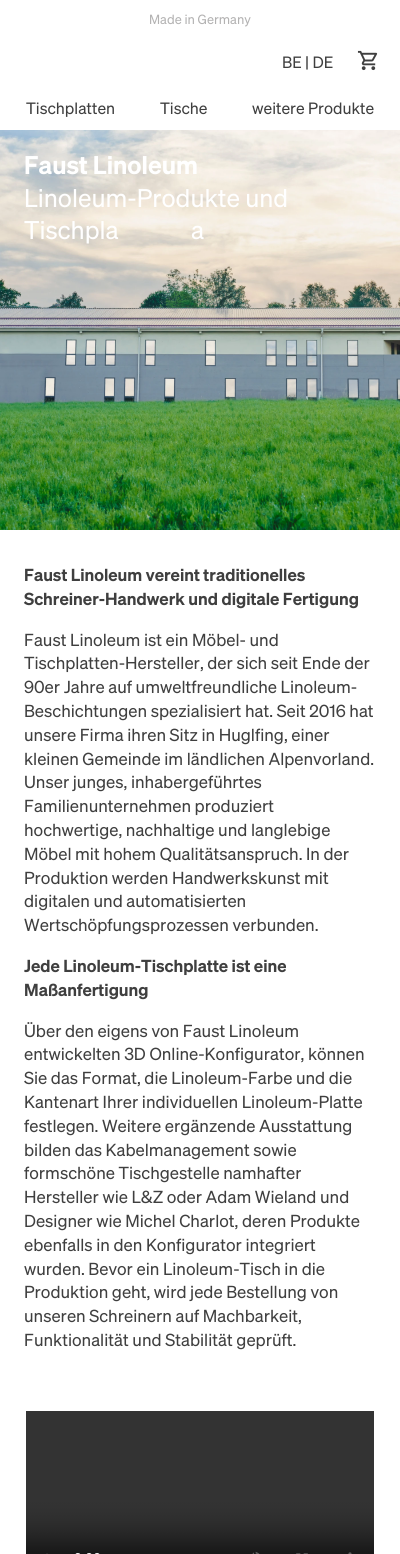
#include <cairo/cairo.h>
#include <math.h>
#include <stddef.h>


static void draw_image(cairo_t *cr, const char *path, double x, double y, double w, double h) {
  cairo_surface_t *image = cairo_image_surface_create_from_png(path);
  cairo_save(cr);
  cairo_set_source_surface(cr, image, x, y);
  cairo_rectangle(cr, x, y, w, h);
  cairo_fill(cr);
  cairo_restore(cr);
  cairo_surface_destroy(image);
}

static void draw(cairo_t *cr) {
  cairo_set_source_rgb(cr, 1, 1, 1);
  cairo_paint(cr);
  draw_image(cr, "images/1.png", 357, 50, 21, 21);
  draw_image(cr, "images/2.png", 0, 130, 400, 400);
  draw_image(cr, "images/3.png", 26, 1411, 348, 143);
  cairo_select_font_face(cr, "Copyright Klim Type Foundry", CAIRO_FONT_SLANT_NORMAL, CAIRO_FONT_WEIGHT_NORMAL);
  cairo_set_font_size(cr, 13);
  cairo_set_source_rgb(cr, 179 / 255.0, 178 / 255.0, 178 / 255.0);
  cairo_move_to(cr, 149, 24);
  cairo_show_text(cr, "Made in Germany");
  cairo_set_font_size(cr, 16);
  cairo_set_source_rgb(cr, 63 / 255.0, 63 / 255.0, 63 / 255.0);
  cairo_move_to(cr, 282, 68);
  cairo_show_text(cr, "BE | DE");
  cairo_move_to(cr, 26, 114);
  cairo_show_text(cr, "Tischplatten");
  cairo_move_to(cr, 160, 114);
  cairo_show_text(cr, "Tische");
  cairo_move_to(cr, 252, 114);
  cairo_show_text(cr, "weitere Produkte");
  cairo_select_font_face(cr, "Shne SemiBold", CAIRO_FONT_SLANT_NORMAL, CAIRO_FONT_WEIGHT_NORMAL);
  cairo_set_font_size(cr, 25);
  cairo_set_source_rgb(cr, 1, 1, 1);
  cairo_move_to(cr, 24, 174);
  cairo_show_text(cr, "Faust Linoleum");
  cairo_select_font_face(cr, "Copyright Klim Type Foundry", CAIRO_FONT_SLANT_NORMAL, CAIRO_FONT_WEIGHT_NORMAL);
  cairo_move_to(cr, 24, 207);
  cairo_show_text(cr, "Linoleum-Produkte und");
  cairo_move_to(cr, 24, 239);
  cairo_show_text(cr, "Tischpla");
  cairo_move_to(cr, 191, 239);
  cairo_show_text(cr, "a");
  cairo_select_font_face(cr, "Shne SemiBold", CAIRO_FONT_SLANT_NORMAL, CAIRO_FONT_WEIGHT_NORMAL);
  cairo_set_font_size(cr, 17);
  cairo_set_source_rgb(cr, 63 / 255.0, 63 / 255.0, 63 / 255.0);
  cairo_move_to(cr, 24, 581);
  cairo_show_text(cr, "Faust Linoleum vereint traditionelles");
  cairo_move_to(cr, 24, 605);
  cairo_show_text(cr, "Schreiner-Handwerk und digitale Fertigung");
  cairo_select_font_face(cr, "Copyright Klim Type Foundry", CAIRO_FONT_SLANT_NORMAL, CAIRO_FONT_WEIGHT_NORMAL);
  cairo_move_to(cr, 24, 646);
  cairo_show_text(cr, "Faust Linoleum ist ein Möbel- und");
  cairo_move_to(cr, 24, 669);
  cairo_show_text(cr, "Tischplatten-Hersteller, der sich seit Ende der");
  cairo_move_to(cr, 24, 693);
  cairo_show_text(cr, "90er Jahre auf umweltfreundliche Linoleum-");
  cairo_move_to(cr, 24, 717);
  cairo_show_text(cr, "Beschichtungen spezialisiert hat. Seit 2016 hat");
  cairo_move_to(cr, 24, 741);
  cairo_show_text(cr, "unsere Firma ihren Sitz in Huglfing, einer");
  cairo_move_to(cr, 24, 765);
  cairo_show_text(cr, "kleinen Gemeinde im ländlichen Alpenvorland.");
  cairo_move_to(cr, 24, 788);
  cairo_show_text(cr, "Unser junges, inhabergeführtes");
  cairo_move_to(cr, 24, 812);
  cairo_show_text(cr, "Familienunternehmen produziert");
  cairo_move_to(cr, 24, 836);
  cairo_show_text(cr, "hochwertige, nachhaltige und langlebige");
  cairo_move_to(cr, 24, 860);
  cairo_show_text(cr, "Möbel mit hohem Qualitätsanspruch. In der");
  cairo_move_to(cr, 24, 884);
  cairo_show_text(cr, "Produktion werden Handwerkskunst mit");
  cairo_move_to(cr, 24, 907);
  cairo_show_text(cr, "digitalen und automatisierten");
  cairo_move_to(cr, 24, 931);
  cairo_show_text(cr, "Wertschöpfungsprozessen verbunden.");
  cairo_select_font_face(cr, "Shne SemiBold", CAIRO_FONT_SLANT_NORMAL, CAIRO_FONT_WEIGHT_NORMAL);
  cairo_move_to(cr, 24, 972);
  cairo_show_text(cr, "Jede Linoleum-Tischplatte ist eine");
  cairo_move_to(cr, 24, 996);
  cairo_show_text(cr, "Maßanfertigung");
  cairo_select_font_face(cr, "Copyright Klim Type Foundry", CAIRO_FONT_SLANT_NORMAL, CAIRO_FONT_WEIGHT_NORMAL);
  cairo_move_to(cr, 24, 1037);
  cairo_show_text(cr, "Über den eigens von Faust Linoleum");
  cairo_move_to(cr, 24, 1060);
  cairo_show_text(cr, "entwickelten 3D Online-Konfigurator, können");
  cairo_move_to(cr, 24, 1084);
  cairo_show_text(cr, "Sie das Format, die Linoleum-Farbe und die");
  cairo_move_to(cr, 24, 1108);
  cairo_show_text(cr, "Kantenart Ihrer individuellen Linoleum-Platte");
  cairo_move_to(cr, 24, 1132);
  cairo_show_text(cr, "festlegen. Weitere ergänzende Ausstattung");
  cairo_move_to(cr, 24, 1156);
  cairo_show_text(cr, "bilden das Kabelmanagement sowie");
  cairo_move_to(cr, 24, 1179);
  cairo_show_text(cr, "formschöne Tischgestelle namhafter");
  cairo_move_to(cr, 24, 1203);
  cairo_show_text(cr, "Hersteller wie L&Z oder Adam Wieland und");
  cairo_move_to(cr, 24, 1227);
  cairo_show_text(cr, "Designer wie Michel Charlot, deren Produkte");
  cairo_move_to(cr, 24, 1251);
  cairo_show_text(cr, "ebenfalls in den Konfigurator integriert");
  cairo_move_to(cr, 24, 1275);
  cairo_show_text(cr, "wurden. Bevor ein Linoleum-Tisch in die");
  cairo_move_to(cr, 24, 1298);
  cairo_show_text(cr, "Produktion geht, wird jede Bestellung von");
  cairo_move_to(cr, 24, 1322);
  cairo_show_text(cr, "unseren Schreinern auf Machbarkeit,");
  cairo_move_to(cr, 24, 1346);
  cairo_show_text(cr, "Funktionalität und Stabilität geprüft.");
}

int main(void) {
  cairo_surface_t *surface = cairo_image_surface_create(CAIRO_FORMAT_RGB24, 400, 1554);
  cairo_t *cr = cairo_create(surface);
  cairo_font_options_t *options = cairo_font_options_create();
  cairo_font_options_set_hint_metrics(options, CAIRO_HINT_METRICS_OFF);
  cairo_font_options_set_hint_style(options, CAIRO_HINT_STYLE_NONE);
  cairo_set_font_options(cr, options);
  cairo_set_miter_limit(cr, 4);
  draw(cr);
  cairo_surface_write_to_png(surface, "out.png");
  cairo_font_options_destroy(options);
  cairo_destroy(cr);
  cairo_surface_destroy(surface);
  return 0;
}
